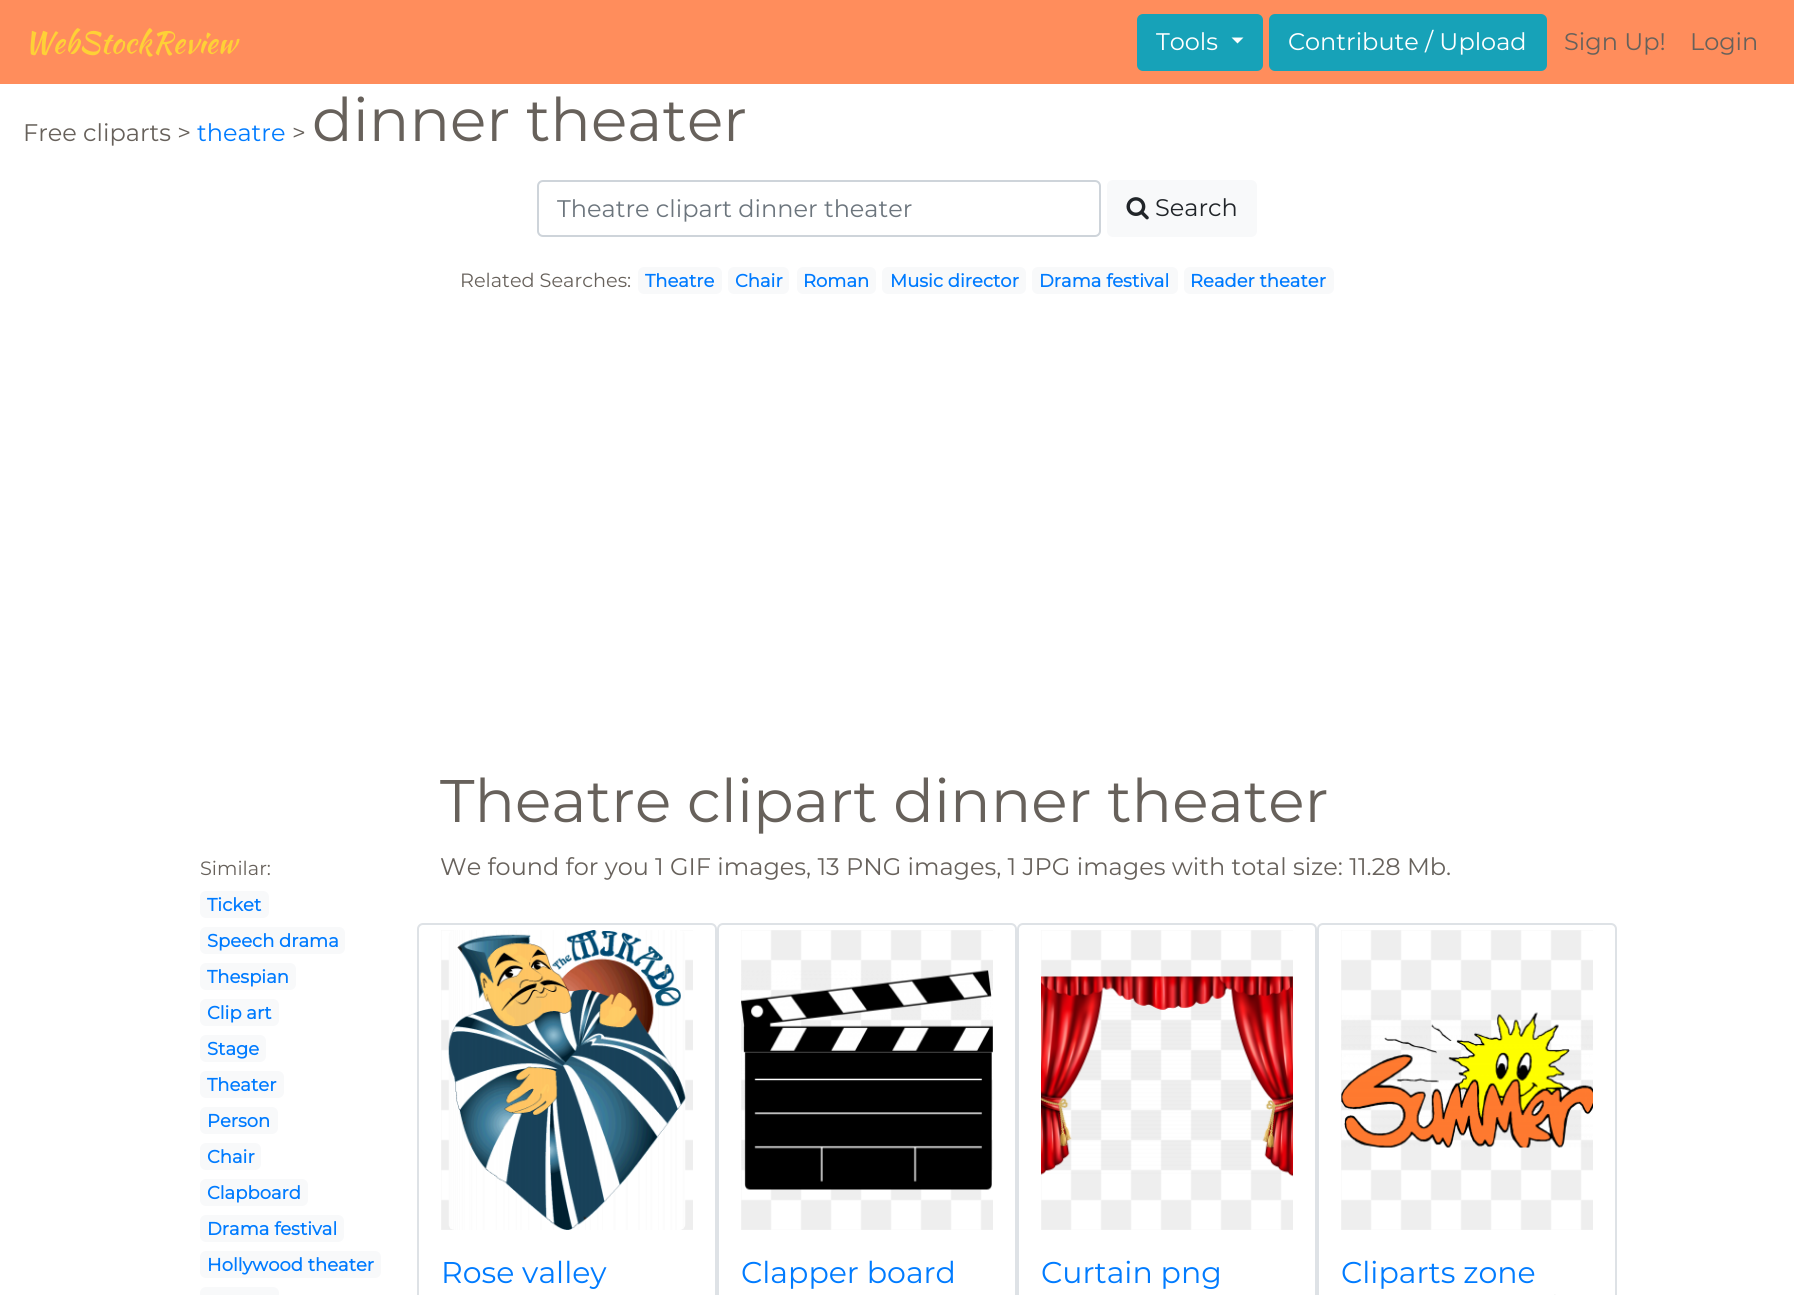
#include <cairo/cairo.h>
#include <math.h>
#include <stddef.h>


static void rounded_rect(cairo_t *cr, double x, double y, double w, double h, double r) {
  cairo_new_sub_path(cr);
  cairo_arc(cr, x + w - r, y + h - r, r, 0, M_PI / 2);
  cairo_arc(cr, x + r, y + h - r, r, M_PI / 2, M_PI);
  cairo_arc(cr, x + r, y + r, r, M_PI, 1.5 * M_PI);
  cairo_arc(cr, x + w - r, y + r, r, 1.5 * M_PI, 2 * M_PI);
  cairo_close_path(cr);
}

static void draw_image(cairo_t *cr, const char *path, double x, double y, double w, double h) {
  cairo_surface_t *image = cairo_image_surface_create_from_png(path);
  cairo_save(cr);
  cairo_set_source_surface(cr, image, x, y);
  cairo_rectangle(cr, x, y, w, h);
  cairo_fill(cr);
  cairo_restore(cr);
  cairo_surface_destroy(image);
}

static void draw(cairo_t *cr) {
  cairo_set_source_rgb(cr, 1, 1, 1);
  cairo_paint(cr);
  cairo_set_source_rgb(cr, 1, 141 / 255.0, 92 / 255.0);
  cairo_rectangle(cr, 0, 0, 1794, 84);
  cairo_fill(cr);
  cairo_set_source_rgb(cr, 23 / 255.0, 162 / 255.0, 184 / 255.0);
  rounded_rect(cr, 1138, 15, 124, 55, 5);
  cairo_fill_preserve(cr);
  cairo_stroke(cr);
  cairo_set_source_rgb(cr, 1, 1, 1);
  cairo_new_path(cr);
  cairo_move_to(cr, 1231.5, 37.5);
  cairo_line_to(cr, 1243.5, 37.5);
  cairo_line_to(cr, 1237.5, 43.5);
  cairo_close_path(cr);
  cairo_fill(cr);
  cairo_set_source_rgb(cr, 23 / 255.0, 162 / 255.0, 184 / 255.0);
  rounded_rect(cr, 1270, 15, 276, 55, 5);
  cairo_fill_preserve(cr);
  cairo_stroke(cr);
  rounded_rect(cr, 538, 181, 562, 55, 5);
  cairo_set_source_rgb(cr, 206 / 255.0, 212 / 255.0, 218 / 255.0);
  cairo_stroke(cr);
  cairo_set_source_rgb(cr, 248 / 255.0, 249 / 255.0, 250 / 255.0);
  rounded_rect(cr, 1107, 180, 150, 57, 6);
  cairo_fill(cr);
  draw_image(cr, "images/1.png", 1126, 197, 23, 23);
  rounded_rect(cr, 638, 267, 84, 27, 6);
  cairo_fill(cr);
  rounded_rect(cr, 728, 267, 61, 27, 6);
  cairo_fill(cr);
  rounded_rect(cr, 797, 267, 79, 27, 6);
  cairo_fill(cr);
  rounded_rect(cr, 882, 267, 144, 27, 6);
  cairo_fill(cr);
  rounded_rect(cr, 1032, 267, 146, 27, 6);
  cairo_fill(cr);
  rounded_rect(cr, 1184, 267, 150, 27, 6);
  cairo_fill(cr);
  rounded_rect(cr, 200, 891, 69, 27, 6);
  cairo_fill(cr);
  rounded_rect(cr, 200, 927, 145, 27, 6);
  cairo_fill(cr);
  rounded_rect(cr, 200, 963, 96, 27, 6);
  cairo_fill(cr);
  rounded_rect(cr, 200, 999, 79, 27, 6);
  cairo_fill(cr);
  rounded_rect(cr, 200, 1035, 66, 27, 6);
  cairo_fill(cr);
  rounded_rect(cr, 200, 1071, 84, 27, 6);
  cairo_fill(cr);
  rounded_rect(cr, 200, 1107, 78, 27, 6);
  cairo_fill(cr);
  rounded_rect(cr, 200, 1143, 61, 27, 6);
  cairo_fill(cr);
  rounded_rect(cr, 200, 1179, 108, 27, 6);
  cairo_fill(cr);
  rounded_rect(cr, 200, 1215, 144, 27, 6);
  cairo_fill(cr);
  rounded_rect(cr, 200, 1251, 181, 27, 6);
  cairo_fill(cr);
  rounded_rect(cr, 200, 1287, 79, 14, 6);
  cairo_fill(cr);
  rounded_rect(cr, 418, 924, 298, 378, 5);
  cairo_set_source_rgb(cr, 222 / 255.0, 226 / 255.0, 230 / 255.0);
  cairo_stroke(cr);
  draw_image(cr, "images/2.png", 441, 930, 252, 300);
  draw_image(cr, "images/3.png", 448, 930, 238, 300);
  rounded_rect(cr, 718, 924, 298, 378, 5);
  cairo_stroke(cr);
  draw_image(cr, "images/2.png", 741, 930, 252, 300);
  draw_image(cr, "images/4.png", 741, 970, 252, 220);
  rounded_rect(cr, 1018, 924, 298, 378, 5);
  cairo_stroke(cr);
  draw_image(cr, "images/2.png", 1041, 930, 252, 300);
  draw_image(cr, "images/5.png", 1041, 976, 252, 201);
  rounded_rect(cr, 1318, 924, 298, 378, 5);
  cairo_stroke(cr);
  draw_image(cr, "images/2.png", 1341, 930, 252, 300);
  draw_image(cr, "images/6.png", 1341, 1012, 252, 136);
  draw_image(cr, "images/7.png", 1554, 1294, 2, 1);
  cairo_select_font_face(cr, "Kaushan Script", CAIRO_FONT_SLANT_NORMAL, CAIRO_FONT_WEIGHT_NORMAL);
  cairo_set_font_size(cr, 30);
  cairo_set_source_rgb(cr, 254 / 255.0, 209 / 255.0, 54 / 255.0);
  cairo_move_to(cr, 24, 53);
  cairo_show_text(cr, "WebStockReview");
  cairo_select_font_face(cr, "Montserrat Thin", CAIRO_FONT_SLANT_NORMAL, CAIRO_FONT_WEIGHT_NORMAL);
  cairo_set_font_size(cr, 24);
  cairo_set_source_rgb(cr, 1, 1, 1);
  cairo_move_to(cr, 1156, 50);
  cairo_show_text(cr, "Tools");
  cairo_move_to(cr, 1288, 50);
  cairo_show_text(cr, "Contribute / Upload");
  cairo_set_source_rgb(cr, 103 / 255.0, 97 / 255.0, 91 / 255.0);
  cairo_move_to(cr, 1564, 50);
  cairo_show_text(cr, "Sign Up!");
  cairo_move_to(cr, 1690, 50);
  cairo_show_text(cr, "Login");
  cairo_move_to(cr, 23, 141);
  cairo_show_text(cr, "Free cliparts >");
  cairo_set_source_rgb(cr, 0, 123 / 255.0, 1);
  cairo_move_to(cr, 197, 141);
  cairo_show_text(cr, "theatre");
  cairo_set_source_rgb(cr, 103 / 255.0, 97 / 255.0, 91 / 255.0);
  cairo_move_to(cr, 292, 141);
  cairo_show_text(cr, ">");
  cairo_set_font_size(cr, 60);
  cairo_move_to(cr, 312, 141);
  cairo_show_text(cr, "dinner theater");
  cairo_set_font_size(cr, 24);
  cairo_set_source_rgb(cr, 108 / 255.0, 117 / 255.0, 125 / 255.0);
  cairo_move_to(cr, 557, 217);
  cairo_show_text(cr, "Theatre clipart dinner theater");
  cairo_set_source_rgb(cr, 33 / 255.0, 37 / 255.0, 41 / 255.0);
  cairo_move_to(cr, 1155, 216);
  cairo_show_text(cr, "Search");
  cairo_set_font_size(cr, 19.25);
  cairo_set_source_rgb(cr, 103 / 255.0, 97 / 255.0, 91 / 255.0);
  cairo_move_to(cr, 460, 287);
  cairo_show_text(cr, "Related Searches:");
  cairo_select_font_face(cr, "Montserrat", CAIRO_FONT_SLANT_NORMAL, CAIRO_FONT_WEIGHT_BOLD);
  cairo_set_font_size(cr, 18);
  cairo_set_source_rgb(cr, 0, 123 / 255.0, 1);
  cairo_move_to(cr, 645, 287);
  cairo_show_text(cr, "Theatre");
  cairo_move_to(cr, 735, 287);
  cairo_show_text(cr, "Chair");
  cairo_move_to(cr, 803, 287);
  cairo_show_text(cr, "Roman");
  cairo_move_to(cr, 890, 287);
  cairo_show_text(cr, "Music director");
  cairo_move_to(cr, 1039, 287);
  cairo_show_text(cr, "Drama festival");
  cairo_move_to(cr, 1190, 287);
  cairo_show_text(cr, "Reader theater");
  cairo_select_font_face(cr, "Montserrat Thin", CAIRO_FONT_SLANT_NORMAL, CAIRO_FONT_WEIGHT_NORMAL);
  cairo_set_font_size(cr, 60);
  cairo_set_source_rgb(cr, 103 / 255.0, 97 / 255.0, 91 / 255.0);
  cairo_move_to(cr, 440, 822);
  cairo_show_text(cr, "Theatre clipart dinner theater");
  cairo_set_font_size(cr, 19.25);
  cairo_move_to(cr, 200, 875);
  cairo_show_text(cr, "Similar:");
  cairo_select_font_face(cr, "Montserrat", CAIRO_FONT_SLANT_NORMAL, CAIRO_FONT_WEIGHT_BOLD);
  cairo_set_font_size(cr, 18);
  cairo_set_source_rgb(cr, 0, 123 / 255.0, 1);
  cairo_move_to(cr, 207, 911);
  cairo_show_text(cr, "Ticket");
  cairo_move_to(cr, 207, 947);
  cairo_show_text(cr, "Speech drama");
  cairo_move_to(cr, 207, 983);
  cairo_show_text(cr, "Thespian");
  cairo_move_to(cr, 207, 1019);
  cairo_show_text(cr, "Clip art");
  cairo_move_to(cr, 207, 1055);
  cairo_show_text(cr, "Stage");
  cairo_move_to(cr, 207, 1091);
  cairo_show_text(cr, "Theater");
  cairo_move_to(cr, 207, 1127);
  cairo_show_text(cr, "Person");
  cairo_move_to(cr, 207, 1163);
  cairo_show_text(cr, "Chair");
  cairo_move_to(cr, 207, 1199);
  cairo_show_text(cr, "Clapboard");
  cairo_move_to(cr, 207, 1235);
  cairo_show_text(cr, "Drama festival");
  cairo_move_to(cr, 207, 1271);
  cairo_show_text(cr, "Hollywood theater");
  cairo_select_font_face(cr, "Montserrat Thin", CAIRO_FONT_SLANT_NORMAL, CAIRO_FONT_WEIGHT_NORMAL);
  cairo_set_font_size(cr, 24);
  cairo_set_source_rgb(cr, 103 / 255.0, 97 / 255.0, 91 / 255.0);
  cairo_move_to(cr, 440, 875);
  cairo_show_text(cr, "We found for you 1 GIF images, 13 PNG images, 1 JPG images with total size: 11.28 Mb.");
  cairo_set_font_size(cr, 30);
  cairo_set_source_rgb(cr, 0, 123 / 255.0, 1);
  cairo_move_to(cr, 441, 1283);
  cairo_show_text(cr, "Rose valley");
  cairo_move_to(cr, 741, 1283);
  cairo_show_text(cr, "Clapper board");
  cairo_move_to(cr, 1041, 1283);
  cairo_show_text(cr, "Curtain png");
  cairo_move_to(cr, 1341, 1283);
  cairo_show_text(cr, "Cliparts zone");
}

int main(void) {
  cairo_surface_t *surface = cairo_image_surface_create(CAIRO_FORMAT_RGB24, 1794, 1295);
  cairo_t *cr = cairo_create(surface);
  cairo_font_options_t *options = cairo_font_options_create();
  cairo_font_options_set_hint_metrics(options, CAIRO_HINT_METRICS_OFF);
  cairo_font_options_set_hint_style(options, CAIRO_HINT_STYLE_NONE);
  cairo_set_font_options(cr, options);
  cairo_set_miter_limit(cr, 4);
  draw(cr);
  cairo_surface_write_to_png(surface, "out.png");
  cairo_font_options_destroy(options);
  cairo_destroy(cr);
  cairo_surface_destroy(surface);
  return 0;
}
